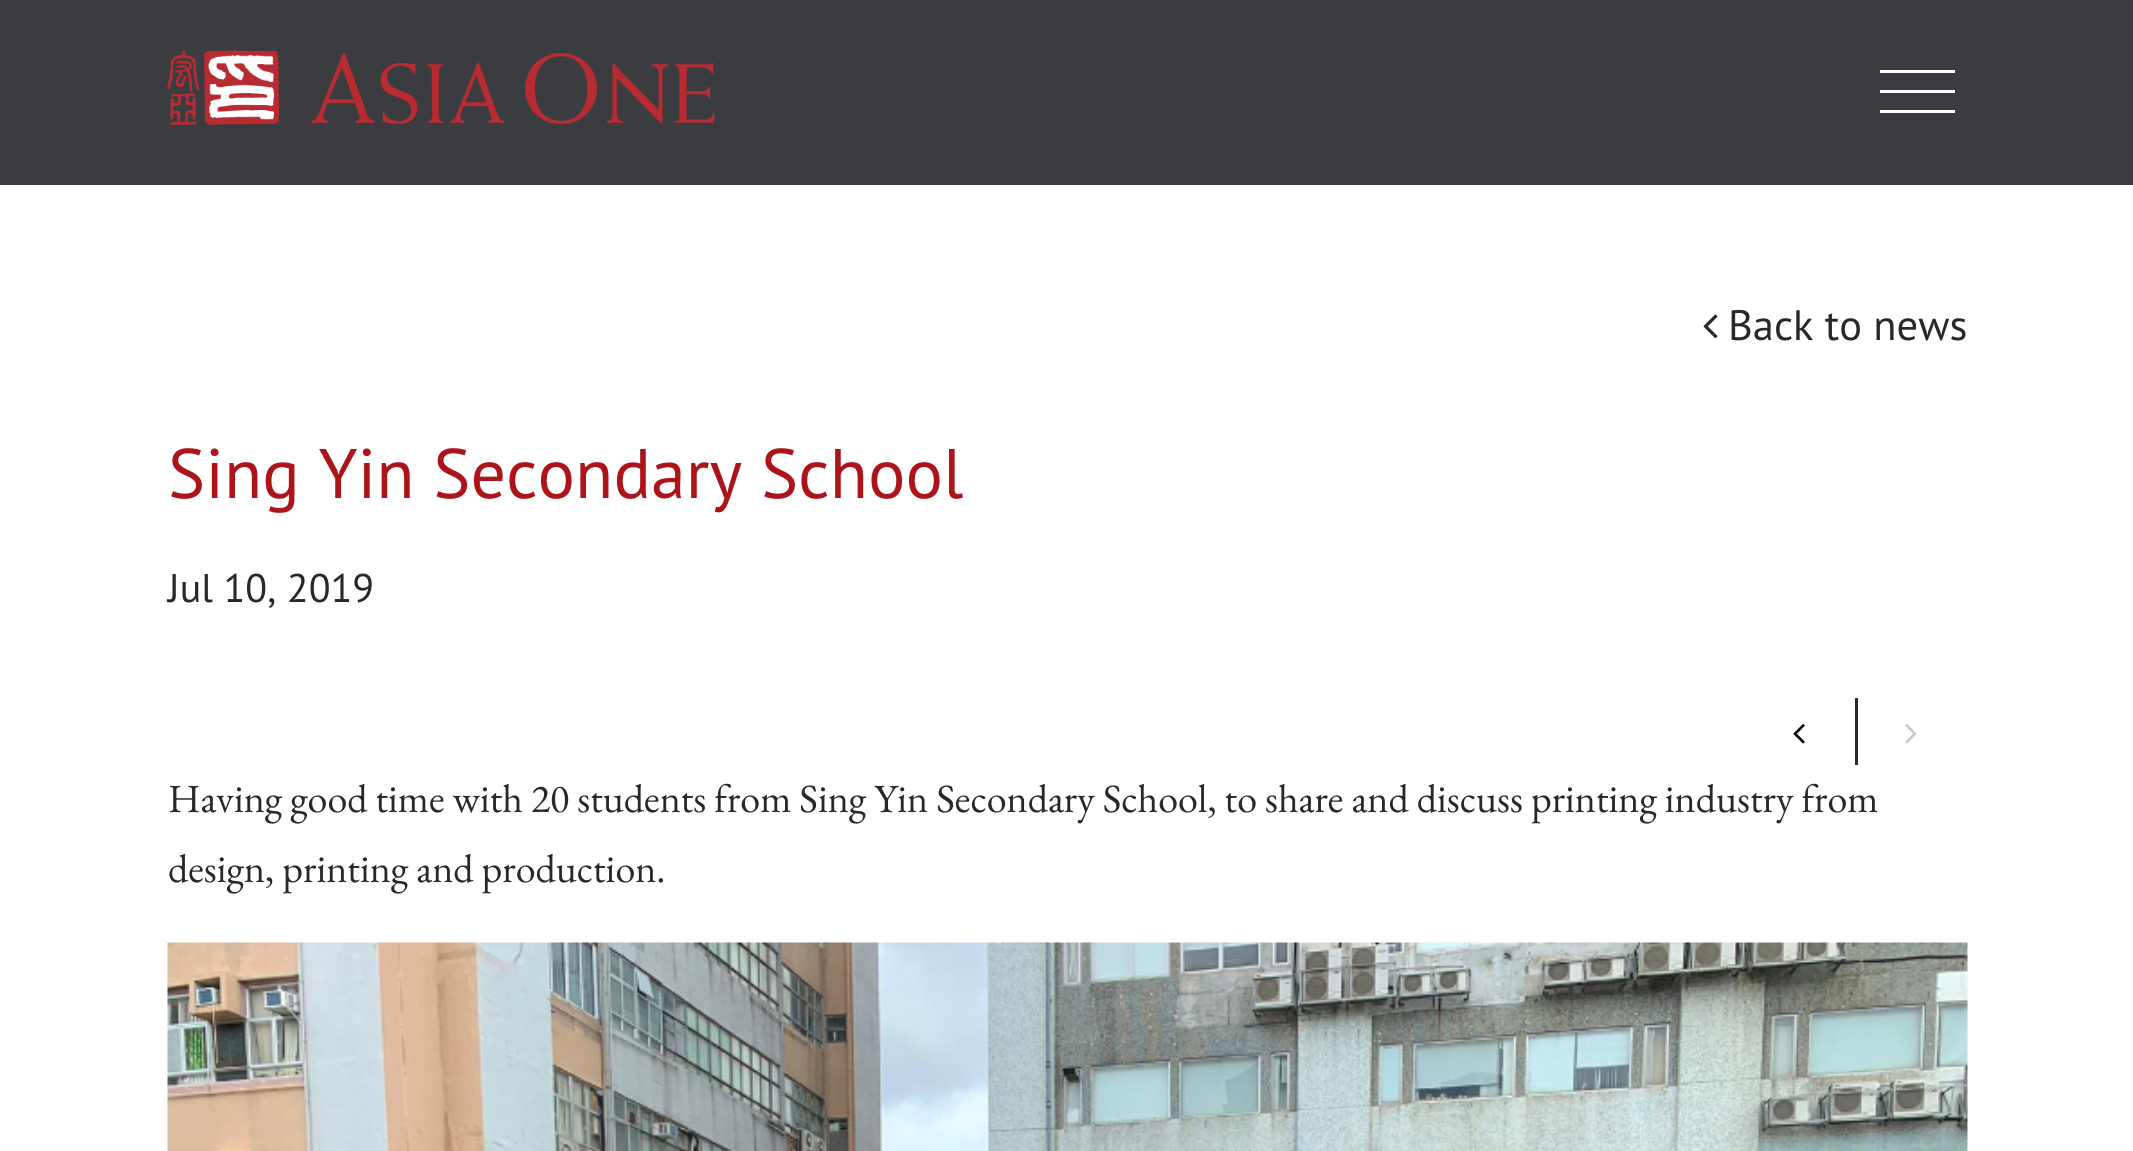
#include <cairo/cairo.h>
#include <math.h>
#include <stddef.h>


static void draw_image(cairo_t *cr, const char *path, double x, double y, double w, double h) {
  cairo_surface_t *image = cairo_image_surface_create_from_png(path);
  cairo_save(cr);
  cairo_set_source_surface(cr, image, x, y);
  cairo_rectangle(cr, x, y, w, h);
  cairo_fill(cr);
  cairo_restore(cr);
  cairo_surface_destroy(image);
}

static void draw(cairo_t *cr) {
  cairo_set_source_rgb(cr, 59 / 255.0, 60 / 255.0, 64 / 255.0);
  cairo_paint(cr);
  draw_image(cr, "images/1.png", 167, 50, 548, 75);
  cairo_set_source_rgb(cr, 1, 1, 1);
  cairo_rectangle(cr, 1880, 110, 75, 3);
  cairo_fill(cr);
  cairo_rectangle(cr, 1880, 70, 75, 3);
  cairo_fill(cr);
  cairo_rectangle(cr, 1880, 90, 75, 3);
  cairo_fill(cr);
  cairo_rectangle(cr, 0, 185, 2133, 966);
  cairo_fill(cr);
  draw_image(cr, "images/2.png", 1703, 314, 15, 25);
  draw_image(cr, "images/3.png", 1793, 724, 12, 20);
  cairo_set_source_rgb(cr, 39 / 255.0, 40 / 255.0, 44 / 255.0);
  cairo_rectangle(cr, 1855, 698, 3, 67);
  cairo_fill(cr);
  draw_image(cr, "images/4.png", 1905, 724, 12, 20);
  draw_image(cr, "images/5.png", 167, 942, 1801, 209);
  cairo_select_font_face(cr, "PT Sans", CAIRO_FONT_SLANT_NORMAL, CAIRO_FONT_WEIGHT_NORMAL);
  cairo_set_font_size(cr, 42.5);
  cairo_move_to(cr, 1728, 340);
  cairo_show_text(cr, "Back to news");
  cairo_set_font_size(cr, 70);
  cairo_set_source_rgb(cr, 173 / 255.0, 20 / 255.0, 25 / 255.0);
  cairo_move_to(cr, 168, 498);
  cairo_show_text(cr, "Sing Yin Secondary School");
  cairo_set_font_size(cr, 40);
  cairo_set_source_rgb(cr, 39 / 255.0, 40 / 255.0, 44 / 255.0);
  cairo_move_to(cr, 168, 602);
  cairo_show_text(cr, "Jul 10, 2019");
  cairo_select_font_face(cr, "EB Garamond", CAIRO_FONT_SLANT_NORMAL, CAIRO_FONT_WEIGHT_NORMAL);
  cairo_move_to(cr, 168, 812);
  cairo_show_text(cr, "Having good time with 20 students from Sing Yin Secondary School, to share and discuss printing industry from");
  cairo_move_to(cr, 168, 882);
  cairo_show_text(cr, "design, printing and production.");
}

int main(void) {
  cairo_surface_t *surface = cairo_image_surface_create(CAIRO_FORMAT_RGB24, 2133, 1151);
  cairo_t *cr = cairo_create(surface);
  cairo_font_options_t *options = cairo_font_options_create();
  cairo_font_options_set_hint_metrics(options, CAIRO_HINT_METRICS_OFF);
  cairo_font_options_set_hint_style(options, CAIRO_HINT_STYLE_NONE);
  cairo_set_font_options(cr, options);
  cairo_set_miter_limit(cr, 4);
  draw(cr);
  cairo_surface_write_to_png(surface, "out.png");
  cairo_font_options_destroy(options);
  cairo_destroy(cr);
  cairo_surface_destroy(surface);
  return 0;
}
